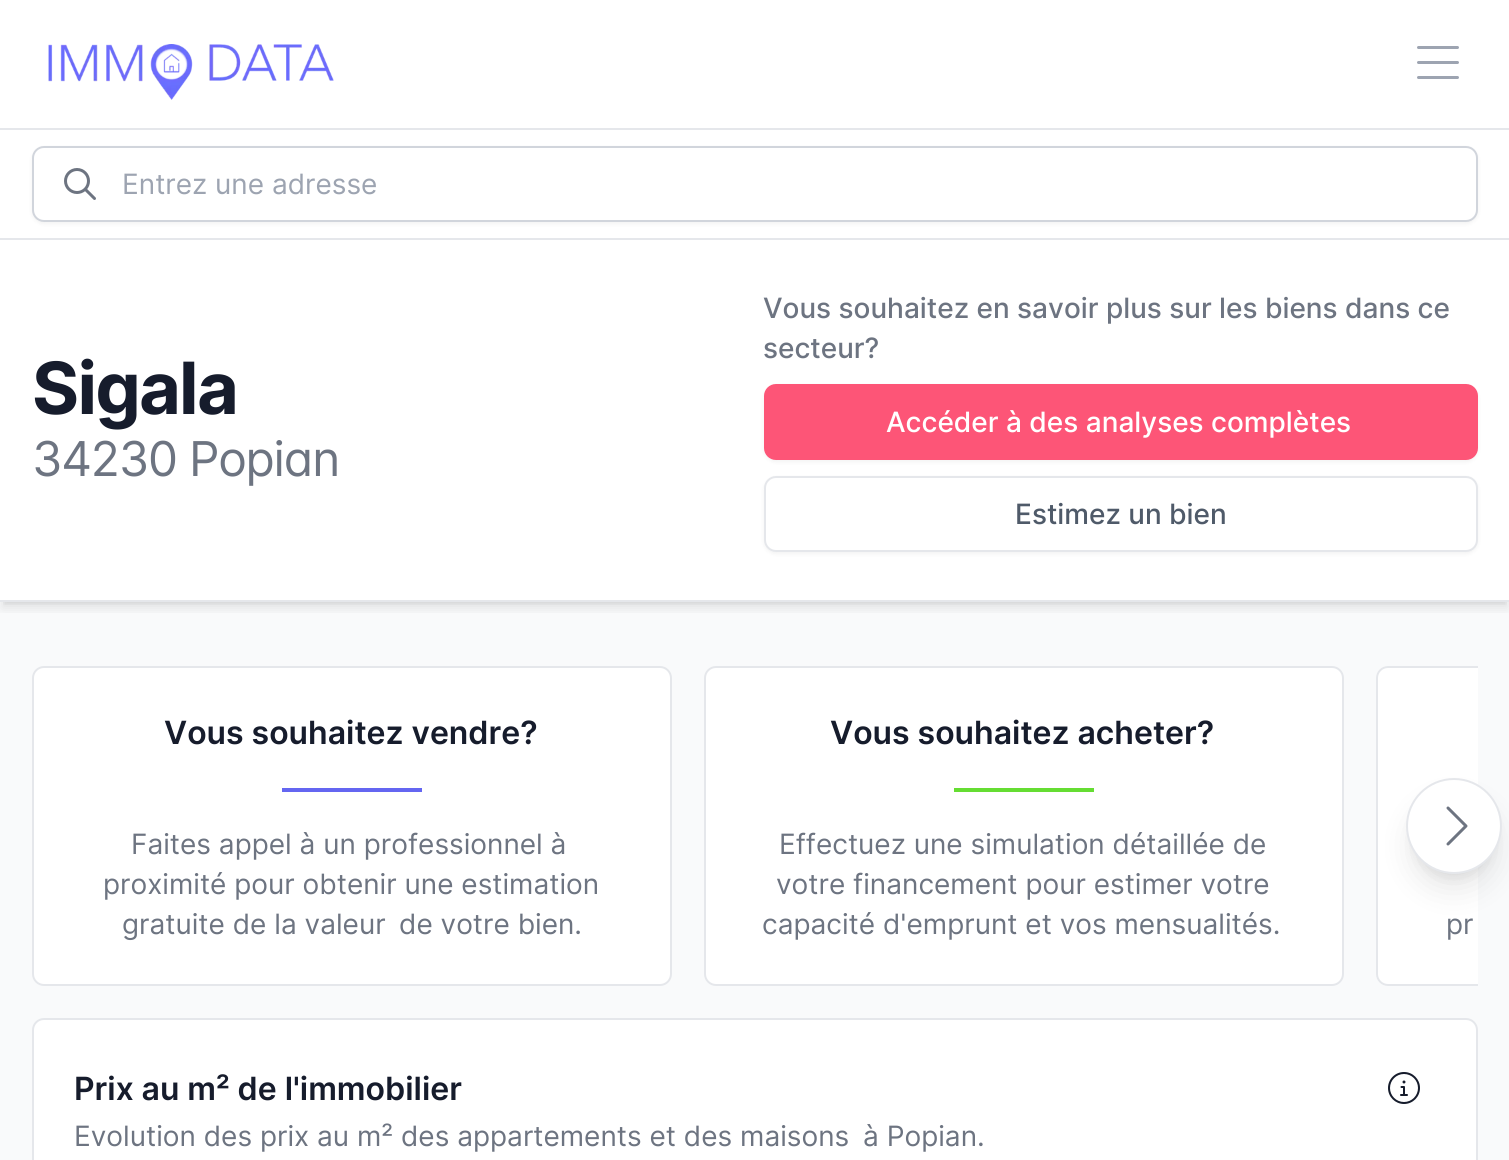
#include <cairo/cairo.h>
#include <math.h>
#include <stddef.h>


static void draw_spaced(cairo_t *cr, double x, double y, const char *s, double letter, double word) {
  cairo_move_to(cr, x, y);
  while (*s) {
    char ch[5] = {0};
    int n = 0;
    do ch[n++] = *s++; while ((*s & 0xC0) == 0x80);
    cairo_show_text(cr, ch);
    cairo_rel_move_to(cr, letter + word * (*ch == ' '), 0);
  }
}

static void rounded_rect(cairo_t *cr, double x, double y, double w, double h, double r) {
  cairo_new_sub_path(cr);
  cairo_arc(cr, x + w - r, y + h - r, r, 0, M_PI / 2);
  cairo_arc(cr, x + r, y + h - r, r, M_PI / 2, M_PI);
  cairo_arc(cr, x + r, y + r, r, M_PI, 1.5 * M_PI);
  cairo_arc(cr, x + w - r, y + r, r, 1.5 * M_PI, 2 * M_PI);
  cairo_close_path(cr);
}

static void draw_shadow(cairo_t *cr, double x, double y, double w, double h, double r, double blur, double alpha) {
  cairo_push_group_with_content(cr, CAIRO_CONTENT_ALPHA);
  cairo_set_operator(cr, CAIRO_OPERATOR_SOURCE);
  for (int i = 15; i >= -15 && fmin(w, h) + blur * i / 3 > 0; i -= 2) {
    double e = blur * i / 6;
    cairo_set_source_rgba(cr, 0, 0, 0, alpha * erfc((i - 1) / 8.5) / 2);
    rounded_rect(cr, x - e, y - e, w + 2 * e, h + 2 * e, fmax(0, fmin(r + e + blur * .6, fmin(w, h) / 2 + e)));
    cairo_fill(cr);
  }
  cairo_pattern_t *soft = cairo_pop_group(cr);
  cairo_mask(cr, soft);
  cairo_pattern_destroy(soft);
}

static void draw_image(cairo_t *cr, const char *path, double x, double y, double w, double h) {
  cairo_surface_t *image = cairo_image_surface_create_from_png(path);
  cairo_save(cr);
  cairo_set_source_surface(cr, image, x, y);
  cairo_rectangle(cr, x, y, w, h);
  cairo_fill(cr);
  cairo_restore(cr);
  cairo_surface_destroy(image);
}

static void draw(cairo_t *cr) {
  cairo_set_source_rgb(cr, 1, 1, 1);
  cairo_paint(cr);
  draw_image(cr, "images/1.png", 48, 44, 286, 56);
  draw_image(cr, "images/2.png", 1417, 46, 42, 33);
  cairo_set_source_rgb(cr, 229 / 255.0, 231 / 255.0, 235 / 255.0);
  cairo_rectangle(cr, 0, 128, 1509, 2);
  cairo_fill(cr);
  cairo_set_source_rgb(cr, 0, 0, 0);
  draw_shadow(cr, 32, 148, 1446, 76, 12, 2, 0.05);
  cairo_set_source_rgb(cr, 1, 1, 1);
  rounded_rect(cr, 33, 147, 1444, 74, 11);
  cairo_fill_preserve(cr);
  cairo_set_source_rgb(cr, 209 / 255.0, 213 / 255.0, 220 / 255.0);
  cairo_stroke(cr);
  draw_image(cr, "images/3.png", 64, 168, 32, 32);
  cairo_set_source_rgb(cr, 249 / 255.0, 250 / 255.0, 251 / 255.0);
  cairo_rectangle(cr, 0, 602, 1509, 558);
  cairo_fill(cr);
  cairo_save(cr);
  cairo_rectangle(cr, 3, 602, 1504, 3);
  cairo_clip(cr);
  cairo_set_source_rgb(cr, 0, 0, 0);
  draw_shadow(cr, 4, 246, 1502, 356, 0, 4, 0.1);
  cairo_restore(cr);
  cairo_save(cr);
  cairo_rectangle(cr, 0, 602, 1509, 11);
  cairo_clip(cr);
  cairo_set_source_rgb(cr, 0, 0, 0);
  draw_shadow(cr, 2, 248, 1506, 360, 0, 6, 0.1);
  cairo_restore(cr);
  cairo_set_source_rgb(cr, 229 / 255.0, 231 / 255.0, 235 / 255.0);
  cairo_rectangle(cr, 0, 238, 1509, 2);
  cairo_fill(cr);
  cairo_rectangle(cr, 0, 600, 1509, 2);
  cairo_fill(cr);
  cairo_set_source_rgb(cr, 0, 0, 0);
  draw_shadow(cr, 764, 386, 714, 76, 12, 2, 0.05);
  cairo_set_source_rgb(cr, 253 / 255.0, 85 / 255.0, 119 / 255.0);
  rounded_rect(cr, 764, 384, 714, 76, 12);
  cairo_fill(cr);
  cairo_set_source_rgb(cr, 0, 0, 0);
  draw_shadow(cr, 764, 478, 714, 76, 12, 2, 0.05);
  cairo_set_source_rgb(cr, 1, 1, 1);
  rounded_rect(cr, 765, 477, 712, 74, 11);
  cairo_fill_preserve(cr);
  cairo_set_source_rgb(cr, 229 / 255.0, 231 / 255.0, 235 / 255.0);
  cairo_stroke(cr);
  cairo_set_source_rgb(cr, 1, 1, 1);
  rounded_rect(cr, 33, 667, 638, 318, 11);
  cairo_fill_preserve(cr);
  cairo_set_source_rgb(cr, 229 / 255.0, 231 / 255.0, 235 / 255.0);
  cairo_stroke(cr);
  cairo_set_source_rgb(cr, 100 / 255.0, 102 / 255.0, 241 / 255.0);
  cairo_rectangle(cr, 282, 788, 140, 4);
  cairo_fill(cr);
  cairo_set_source_rgb(cr, 1, 1, 1);
  rounded_rect(cr, 705, 667, 638, 318, 11);
  cairo_fill_preserve(cr);
  cairo_set_source_rgb(cr, 229 / 255.0, 231 / 255.0, 235 / 255.0);
  cairo_stroke(cr);
  cairo_set_source_rgb(cr, 101 / 255.0, 221 / 255.0, 50 / 255.0);
  cairo_rectangle(cr, 954, 788, 140, 4);
  cairo_fill(cr);
  cairo_set_source_rgb(cr, 1, 1, 1);
  cairo_new_path(cr);
  cairo_move_to(cr, 1388, 666);
  cairo_line_to(cr, 1478, 666);
  cairo_line_to(cr, 1478, 986);
  cairo_line_to(cr, 1388, 986);
  cairo_curve_to(cr, 1381.5, 986, 1376, 980.5, 1376, 974);
  cairo_line_to(cr, 1376, 678);
  cairo_curve_to(cr, 1376, 671.5, 1381.5, 666, 1388, 666);
  cairo_close_path(cr);
  cairo_fill(cr);
  cairo_save(cr);
  cairo_rectangle(cr, 32, 666, 1446, 360);
  cairo_clip(cr);
  rounded_rect(cr, 1377, 667, 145, 318, 11);
  cairo_set_source_rgb(cr, 229 / 255.0, 231 / 255.0, 235 / 255.0);
  cairo_stroke(cr);
  cairo_restore(cr);
  cairo_set_source_rgb(cr, 0, 0, 0);
  draw_shadow(cr, 1414, 794, 80, 80, 40, 6, 0.1);
  draw_shadow(cr, 1412, 804, 84, 84, 42, 15, 0.1);
  cairo_set_source_rgb(cr, 1, 1, 1);
  cairo_arc(cr, 1454, 826, 47, 0, 2 * M_PI);
  cairo_fill_preserve(cr);
  cairo_set_source_rgb(cr, 229 / 255.0, 231 / 255.0, 235 / 255.0);
  cairo_stroke(cr);
  draw_image(cr, "images/4.png", 1446, 806, 22, 40);
  cairo_set_source_rgb(cr, 1, 1, 1);
  rounded_rect(cr, 33, 1019, 1444, 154, 11);
  cairo_fill_preserve(cr);
  cairo_set_source_rgb(cr, 229 / 255.0, 231 / 255.0, 235 / 255.0);
  cairo_stroke(cr);
  draw_image(cr, "images/5.png", 1388, 1072, 32, 32);
  cairo_select_font_face(cr, "Inter", CAIRO_FONT_SLANT_NORMAL, CAIRO_FONT_WEIGHT_NORMAL);
  cairo_set_font_size(cr, 28);
  cairo_set_source_rgb(cr, 157 / 255.0, 164 / 255.0, 177 / 255.0);
  cairo_move_to(cr, 122, 194);
  cairo_show_text(cr, "Entrez une adresse");
  cairo_select_font_face(cr, "Inter", CAIRO_FONT_SLANT_NORMAL, CAIRO_FONT_WEIGHT_BOLD);
  cairo_set_font_size(cr, 72);
  cairo_set_source_rgb(cr, 22 / 255.0, 28 / 255.0, 44 / 255.0);
  draw_spaced(cr, 32, 414, "Sigala", -1.75, 0);
  cairo_select_font_face(cr, "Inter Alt", CAIRO_FONT_SLANT_NORMAL, CAIRO_FONT_WEIGHT_NORMAL);
  cairo_set_font_size(cr, 48);
  cairo_set_source_rgb(cr, 109 / 255.0, 116 / 255.0, 129 / 255.0);
  draw_spaced(cr, 32, 476, "34230 Popian", -1.25, 0);
  cairo_select_font_face(cr, "Inter Medium", CAIRO_FONT_SLANT_NORMAL, CAIRO_FONT_WEIGHT_NORMAL);
  cairo_set_font_size(cr, 28);
  cairo_move_to(cr, 763, 318);
  cairo_show_text(cr, "Vous souhaitez en savoir plus sur les biens dans ce");
  cairo_move_to(cr, 763, 358);
  cairo_show_text(cr, "secteur?");
  cairo_set_source_rgb(cr, 1, 1, 1);
  cairo_move_to(cr, 886, 432);
  cairo_show_text(cr, "Accéder à des analyses complètes");
  cairo_set_source_rgb(cr, 79 / 255.0, 90 / 255.0, 105 / 255.0);
  cairo_move_to(cr, 1015, 524);
  cairo_show_text(cr, "Estimez un bien");
  cairo_select_font_face(cr, "Inter SemiBold", CAIRO_FONT_SLANT_NORMAL, CAIRO_FONT_WEIGHT_NORMAL);
  cairo_set_font_size(cr, 32);
  cairo_set_source_rgb(cr, 22 / 255.0, 28 / 255.0, 44 / 255.0);
  cairo_move_to(cr, 164, 744);
  cairo_show_text(cr, "Vous souhaitez vendre?");
  cairo_select_font_face(cr, "Inter", CAIRO_FONT_SLANT_NORMAL, CAIRO_FONT_WEIGHT_NORMAL);
  cairo_set_font_size(cr, 28);
  cairo_set_source_rgb(cr, 109 / 255.0, 116 / 255.0, 129 / 255.0);
  cairo_move_to(cr, 131, 854);
  cairo_show_text(cr, "Faites appel à un professionnel à");
  cairo_move_to(cr, 103, 894);
  cairo_show_text(cr, "proximité pour obtenir une estimation");
  cairo_move_to(cr, 122, 934);
  cairo_show_text(cr, "gratuite de la valeur");
  cairo_move_to(cr, 399, 934);
  cairo_show_text(cr, "de votre bien.");
  cairo_select_font_face(cr, "Inter SemiBold", CAIRO_FONT_SLANT_NORMAL, CAIRO_FONT_WEIGHT_NORMAL);
  cairo_set_font_size(cr, 32);
  cairo_set_source_rgb(cr, 22 / 255.0, 28 / 255.0, 44 / 255.0);
  cairo_move_to(cr, 830, 744);
  cairo_show_text(cr, "Vous souhaitez acheter?");
  cairo_select_font_face(cr, "Inter", CAIRO_FONT_SLANT_NORMAL, CAIRO_FONT_WEIGHT_NORMAL);
  cairo_set_font_size(cr, 28);
  cairo_set_source_rgb(cr, 109 / 255.0, 116 / 255.0, 129 / 255.0);
  cairo_move_to(cr, 779, 854);
  cairo_show_text(cr, "Effectuez une simulation détaillée de");
  cairo_move_to(cr, 776, 894);
  cairo_show_text(cr, "votre financement pour estimer votre");
  cairo_move_to(cr, 762, 934);
  cairo_show_text(cr, "capacité d'emprunt et vos mensualités.");
  cairo_move_to(cr, 1446, 934);
  cairo_show_text(cr, "pr");
  cairo_select_font_face(cr, "Inter SemiBold", CAIRO_FONT_SLANT_NORMAL, CAIRO_FONT_WEIGHT_NORMAL);
  cairo_set_font_size(cr, 32);
  cairo_set_source_rgb(cr, 22 / 255.0, 28 / 255.0, 44 / 255.0);
  cairo_move_to(cr, 74, 1100);
  cairo_show_text(cr, "Prix au m² de l'immobilier");
  cairo_select_font_face(cr, "Inter", CAIRO_FONT_SLANT_NORMAL, CAIRO_FONT_WEIGHT_NORMAL);
  cairo_set_font_size(cr, 28);
  cairo_set_source_rgb(cr, 109 / 255.0, 116 / 255.0, 129 / 255.0);
  cairo_move_to(cr, 74, 1146);
  cairo_show_text(cr, "Evolution des prix au m² des appartements et des maisons");
  cairo_move_to(cr, 863, 1146);
  cairo_show_text(cr, "à Popian.");
}

int main(void) {
  cairo_surface_t *surface = cairo_image_surface_create(CAIRO_FORMAT_RGB24, 1509, 1160);
  cairo_t *cr = cairo_create(surface);
  cairo_font_options_t *options = cairo_font_options_create();
  cairo_font_options_set_hint_metrics(options, CAIRO_HINT_METRICS_OFF);
  cairo_font_options_set_hint_style(options, CAIRO_HINT_STYLE_NONE);
  cairo_set_font_options(cr, options);
  cairo_set_miter_limit(cr, 4);
  draw(cr);
  cairo_surface_write_to_png(surface, "out.png");
  cairo_font_options_destroy(options);
  cairo_destroy(cr);
  cairo_surface_destroy(surface);
  return 0;
}
